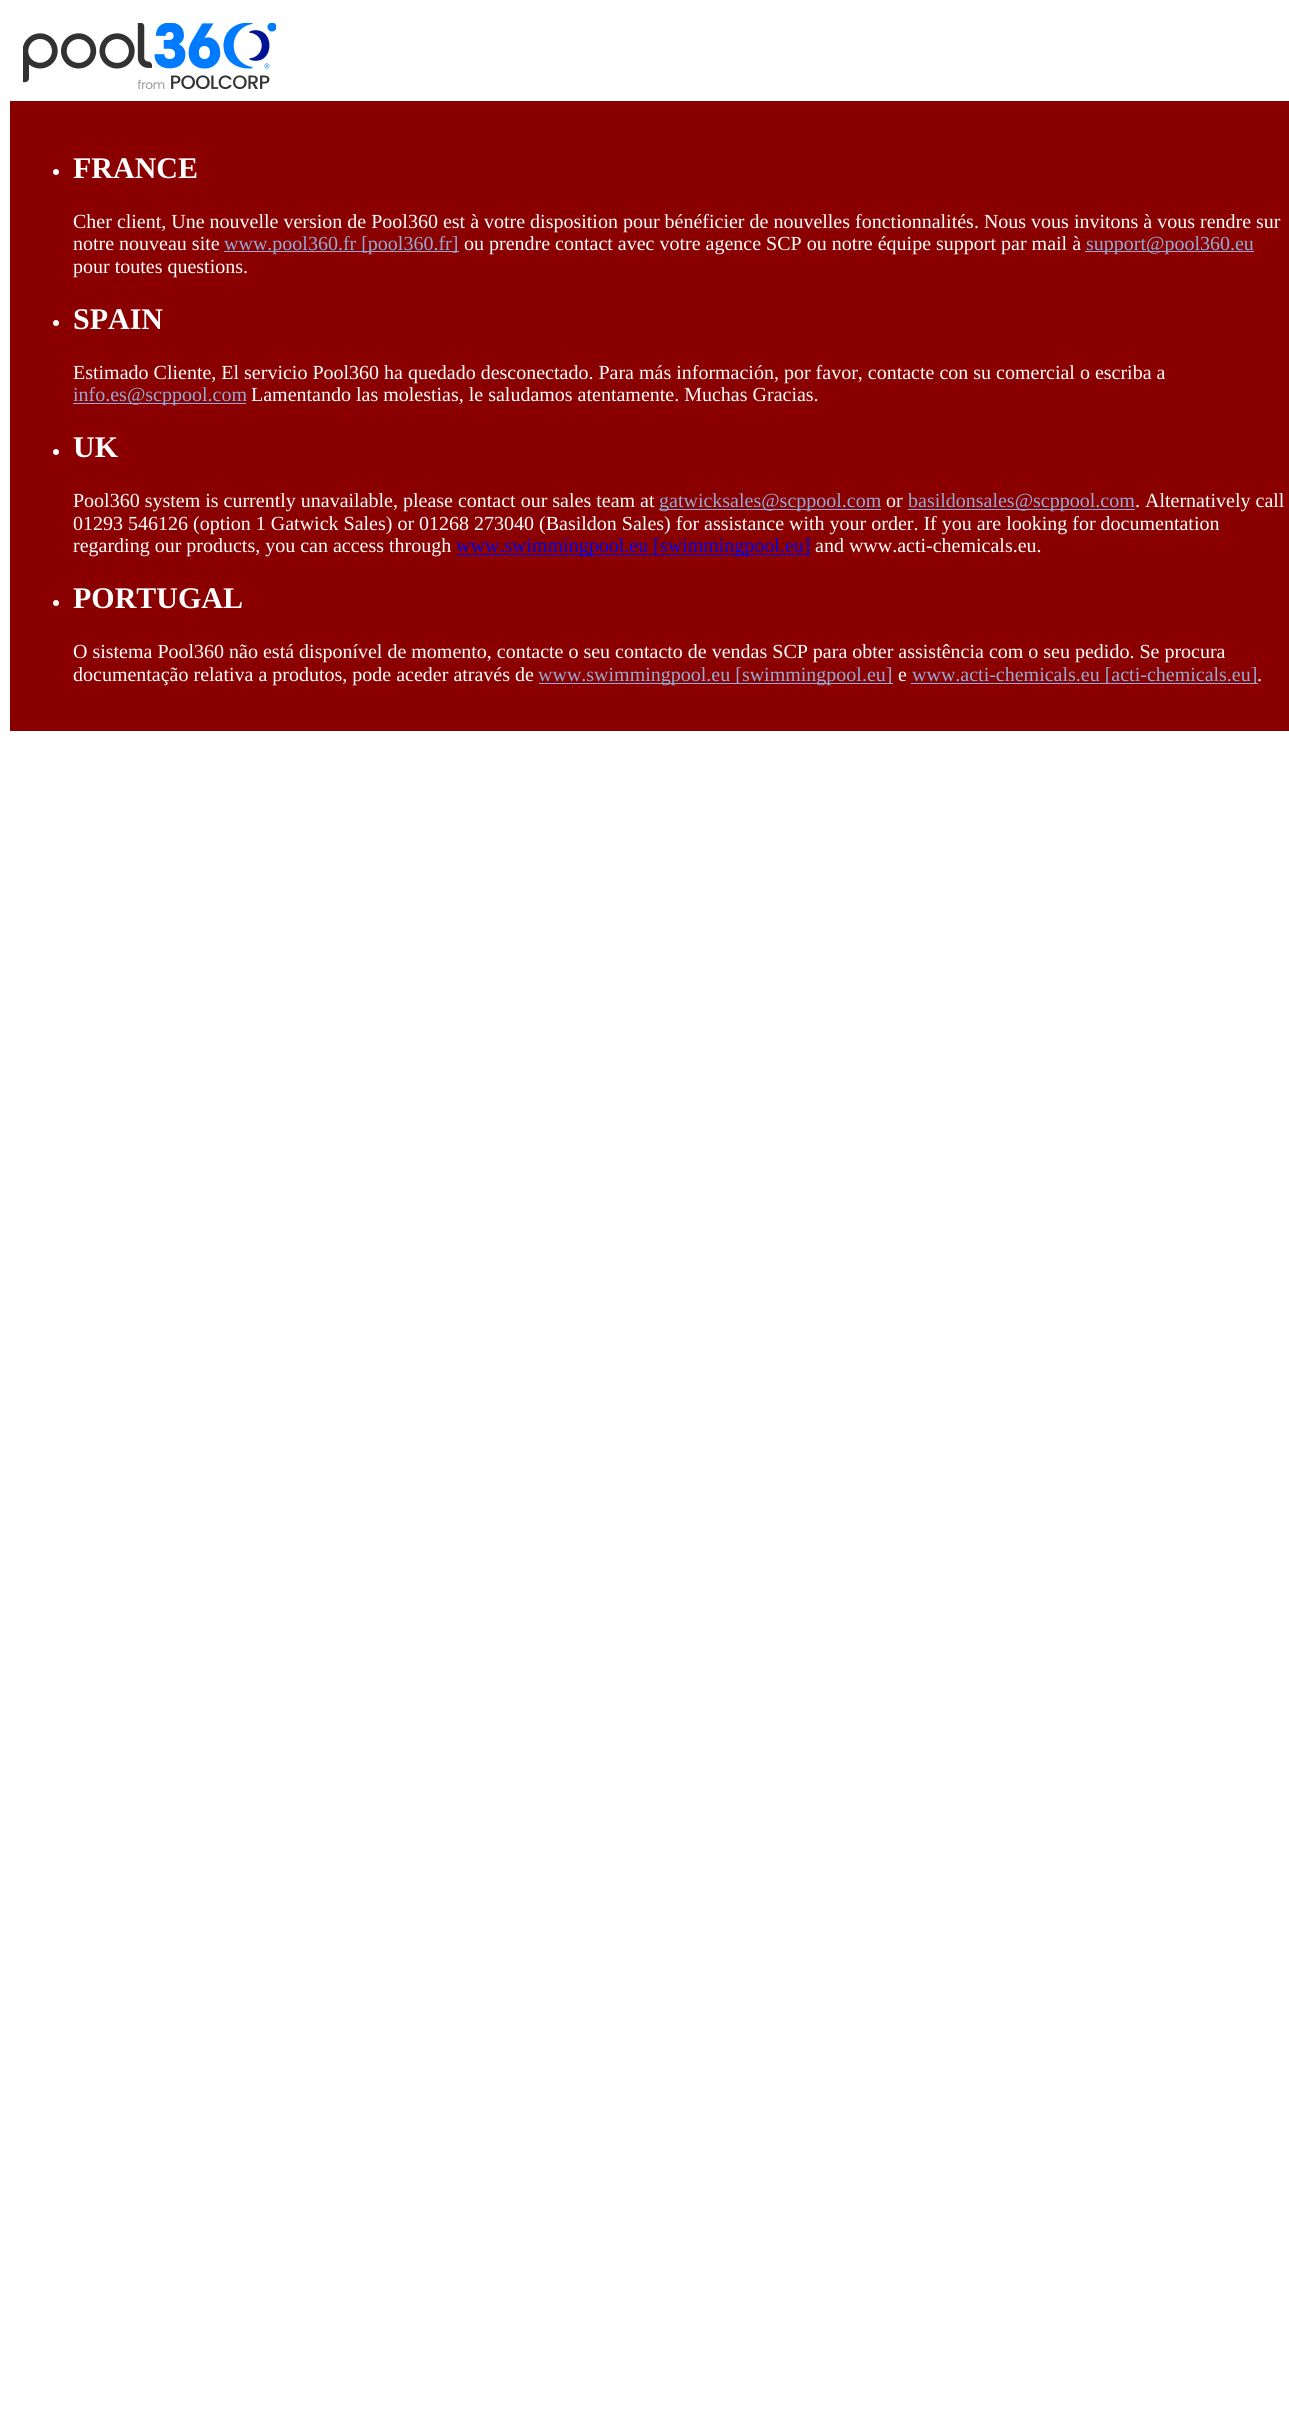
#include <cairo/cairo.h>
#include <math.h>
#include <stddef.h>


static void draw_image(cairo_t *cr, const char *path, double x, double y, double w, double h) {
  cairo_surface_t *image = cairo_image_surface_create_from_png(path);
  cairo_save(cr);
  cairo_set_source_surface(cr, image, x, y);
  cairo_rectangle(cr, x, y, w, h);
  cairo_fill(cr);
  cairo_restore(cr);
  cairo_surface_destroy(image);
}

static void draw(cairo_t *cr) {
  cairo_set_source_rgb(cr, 1, 1, 1);
  cairo_paint(cr);
  draw_image(cr, "images/1.png", 23, 23, 253, 66);
  cairo_set_source_rgb(cr, 138 / 255.0, 0, 0);
  cairo_rectangle(cr, 10, 101, 1279, 630);
  cairo_fill(cr);
  cairo_set_source_rgb(cr, 1, 1, 1);
  cairo_arc(cr, 56, 172, 3, 0, 2 * M_PI);
  cairo_fill(cr);
  cairo_set_source_rgb(cr, 150 / 255.0, 170 / 255.0, 212 / 255.0);
  cairo_rectangle(cr, 224, 251, 235, 1);
  cairo_fill(cr);
  cairo_rectangle(cr, 1085, 251, 169, 1);
  cairo_fill(cr);
  cairo_set_source_rgb(cr, 1, 1, 1);
  cairo_arc(cr, 56, 323, 3, 0, 2 * M_PI);
  cairo_fill(cr);
  cairo_set_source_rgb(cr, 150 / 255.0, 170 / 255.0, 212 / 255.0);
  cairo_rectangle(cr, 73, 403, 173, 1);
  cairo_fill(cr);
  cairo_set_source_rgb(cr, 1, 1, 1);
  cairo_arc(cr, 56, 452, 3, 0, 2 * M_PI);
  cairo_fill(cr);
  cairo_set_source_rgb(cr, 150 / 255.0, 170 / 255.0, 212 / 255.0);
  cairo_rectangle(cr, 659, 509, 222, 1);
  cairo_fill(cr);
  cairo_rectangle(cr, 908, 509, 227, 1);
  cairo_fill(cr);
  cairo_set_source_rgb(cr, 0, 0, 238 / 255.0);
  cairo_rectangle(cr, 456, 554, 354, 1);
  cairo_fill(cr);
  cairo_set_source_rgb(cr, 1, 1, 1);
  cairo_arc(cr, 56, 603, 3, 0, 2 * M_PI);
  cairo_fill(cr);
  cairo_set_source_rgb(cr, 150 / 255.0, 170 / 255.0, 212 / 255.0);
  cairo_rectangle(cr, 539, 683, 354, 1);
  cairo_fill(cr);
  cairo_rectangle(cr, 911, 683, 347, 1);
  cairo_fill(cr);
  cairo_select_font_face(cr, "Liberation Serif", CAIRO_FONT_SLANT_NORMAL, CAIRO_FONT_WEIGHT_BOLD);
  cairo_set_font_size(cr, 30);
  cairo_set_source_rgb(cr, 1, 1, 1);
  cairo_move_to(cr, 73, 178);
  cairo_show_text(cr, "FRANCE");
  cairo_select_font_face(cr, "Liberation Serif", CAIRO_FONT_SLANT_NORMAL, CAIRO_FONT_WEIGHT_NORMAL);
  cairo_set_font_size(cr, 20);
  cairo_move_to(cr, 73, 228);
  cairo_show_text(cr, "Cher client, Une nouvelle version de Pool360 est à votre disposition pour bénéficier de nouvelles fonctionnalités. Nous vous invitons à vous rendre sur");
  cairo_move_to(cr, 73, 250);
  cairo_show_text(cr, "notre nouveau site");
  cairo_set_source_rgb(cr, 150 / 255.0, 170 / 255.0, 212 / 255.0);
  cairo_move_to(cr, 224, 250);
  cairo_show_text(cr, "www.pool360.fr [pool360.fr]");
  cairo_set_source_rgb(cr, 1, 1, 1);
  cairo_move_to(cr, 464, 250);
  cairo_show_text(cr, "ou prendre contact avec votre agence SCP ou notre équipe support par mail à");
  cairo_set_source_rgb(cr, 150 / 255.0, 170 / 255.0, 212 / 255.0);
  cairo_move_to(cr, 1086, 250);
  cairo_show_text(cr, "support@pool360.eu");
  cairo_set_source_rgb(cr, 1, 1, 1);
  cairo_move_to(cr, 73, 273);
  cairo_show_text(cr, "pour toutes questions.");
  cairo_select_font_face(cr, "Liberation Serif", CAIRO_FONT_SLANT_NORMAL, CAIRO_FONT_WEIGHT_BOLD);
  cairo_set_font_size(cr, 30);
  cairo_move_to(cr, 73, 329);
  cairo_show_text(cr, "SPAIN");
  cairo_select_font_face(cr, "Liberation Serif", CAIRO_FONT_SLANT_NORMAL, CAIRO_FONT_WEIGHT_NORMAL);
  cairo_set_font_size(cr, 20);
  cairo_move_to(cr, 73, 379);
  cairo_show_text(cr, "Estimado Cliente, El servicio Pool360 ha quedado desconectado. Para más información, por favor, contacte con su comercial o escriba a");
  cairo_set_source_rgb(cr, 150 / 255.0, 170 / 255.0, 212 / 255.0);
  cairo_move_to(cr, 73, 401);
  cairo_show_text(cr, "info.es@scppool.com");
  cairo_set_source_rgb(cr, 1, 1, 1);
  cairo_move_to(cr, 251, 401);
  cairo_show_text(cr, "Lamentando las molestias, le saludamos atentamente. Muchas Gracias.");
  cairo_select_font_face(cr, "Liberation Serif", CAIRO_FONT_SLANT_NORMAL, CAIRO_FONT_WEIGHT_BOLD);
  cairo_set_font_size(cr, 30);
  cairo_move_to(cr, 73, 457);
  cairo_show_text(cr, "UK");
  cairo_select_font_face(cr, "Liberation Serif", CAIRO_FONT_SLANT_NORMAL, CAIRO_FONT_WEIGHT_NORMAL);
  cairo_set_font_size(cr, 20);
  cairo_move_to(cr, 73, 507);
  cairo_show_text(cr, "Pool360 system is currently unavailable, please contact our sales team at");
  cairo_set_source_rgb(cr, 150 / 255.0, 170 / 255.0, 212 / 255.0);
  cairo_move_to(cr, 659, 507);
  cairo_show_text(cr, "gatwicksales@scppool.com");
  cairo_set_source_rgb(cr, 1, 1, 1);
  cairo_move_to(cr, 886, 507);
  cairo_show_text(cr, "or");
  cairo_set_source_rgb(cr, 150 / 255.0, 170 / 255.0, 212 / 255.0);
  cairo_move_to(cr, 908, 507);
  cairo_show_text(cr, "basildonsales@scppool.com");
  cairo_set_source_rgb(cr, 1, 1, 1);
  cairo_move_to(cr, 1135, 507);
  cairo_show_text(cr, ". Alternatively call");
  cairo_move_to(cr, 73, 530);
  cairo_show_text(cr, "01293 546126 (option 1 Gatwick Sales) or 01268 273040 (Basildon Sales) for assistance with your order. If you are looking for documentation");
  cairo_move_to(cr, 73, 552);
  cairo_show_text(cr, "regarding our products, you can access through");
  cairo_set_source_rgb(cr, 0, 0, 238 / 255.0);
  cairo_move_to(cr, 456, 552);
  cairo_show_text(cr, "www.swimmingpool.eu [swimmingpool.eu]");
  cairo_set_source_rgb(cr, 1, 1, 1);
  cairo_move_to(cr, 815, 552);
  cairo_show_text(cr, "and www.acti-chemicals.eu.");
  cairo_select_font_face(cr, "Liberation Serif", CAIRO_FONT_SLANT_NORMAL, CAIRO_FONT_WEIGHT_BOLD);
  cairo_set_font_size(cr, 30);
  cairo_move_to(cr, 73, 608);
  cairo_show_text(cr, "PORTUGAL");
  cairo_select_font_face(cr, "Liberation Serif", CAIRO_FONT_SLANT_NORMAL, CAIRO_FONT_WEIGHT_NORMAL);
  cairo_set_font_size(cr, 20);
  cairo_move_to(cr, 73, 658);
  cairo_show_text(cr, "O sistema Pool360 não está disponível de momento, contacte o seu contacto de vendas SCP para obter assistência com o seu pedido. Se procura");
  cairo_move_to(cr, 73, 681);
  cairo_show_text(cr, "documentação relativa a produtos, pode aceder através de");
  cairo_set_source_rgb(cr, 150 / 255.0, 170 / 255.0, 212 / 255.0);
  cairo_move_to(cr, 538, 681);
  cairo_show_text(cr, "www.swimmingpool.eu [swimmingpool.eu]");
  cairo_set_source_rgb(cr, 1, 1, 1);
  cairo_move_to(cr, 898, 681);
  cairo_show_text(cr, "e");
  cairo_set_source_rgb(cr, 150 / 255.0, 170 / 255.0, 212 / 255.0);
  cairo_move_to(cr, 912, 681);
  cairo_show_text(cr, "www.acti-chemicals.eu [acti-chemicals.eu]");
  cairo_set_source_rgb(cr, 1, 1, 1);
  cairo_move_to(cr, 1257, 681);
  cairo_show_text(cr, ".");
}

int main(void) {
  cairo_surface_t *surface = cairo_image_surface_create(CAIRO_FORMAT_RGB24, 1289, 2410);
  cairo_t *cr = cairo_create(surface);
  cairo_font_options_t *options = cairo_font_options_create();
  cairo_font_options_set_hint_metrics(options, CAIRO_HINT_METRICS_OFF);
  cairo_font_options_set_hint_style(options, CAIRO_HINT_STYLE_NONE);
  cairo_set_font_options(cr, options);
  cairo_set_miter_limit(cr, 4);
  draw(cr);
  cairo_surface_write_to_png(surface, "out.png");
  cairo_font_options_destroy(options);
  cairo_destroy(cr);
  cairo_surface_destroy(surface);
  return 0;
}
